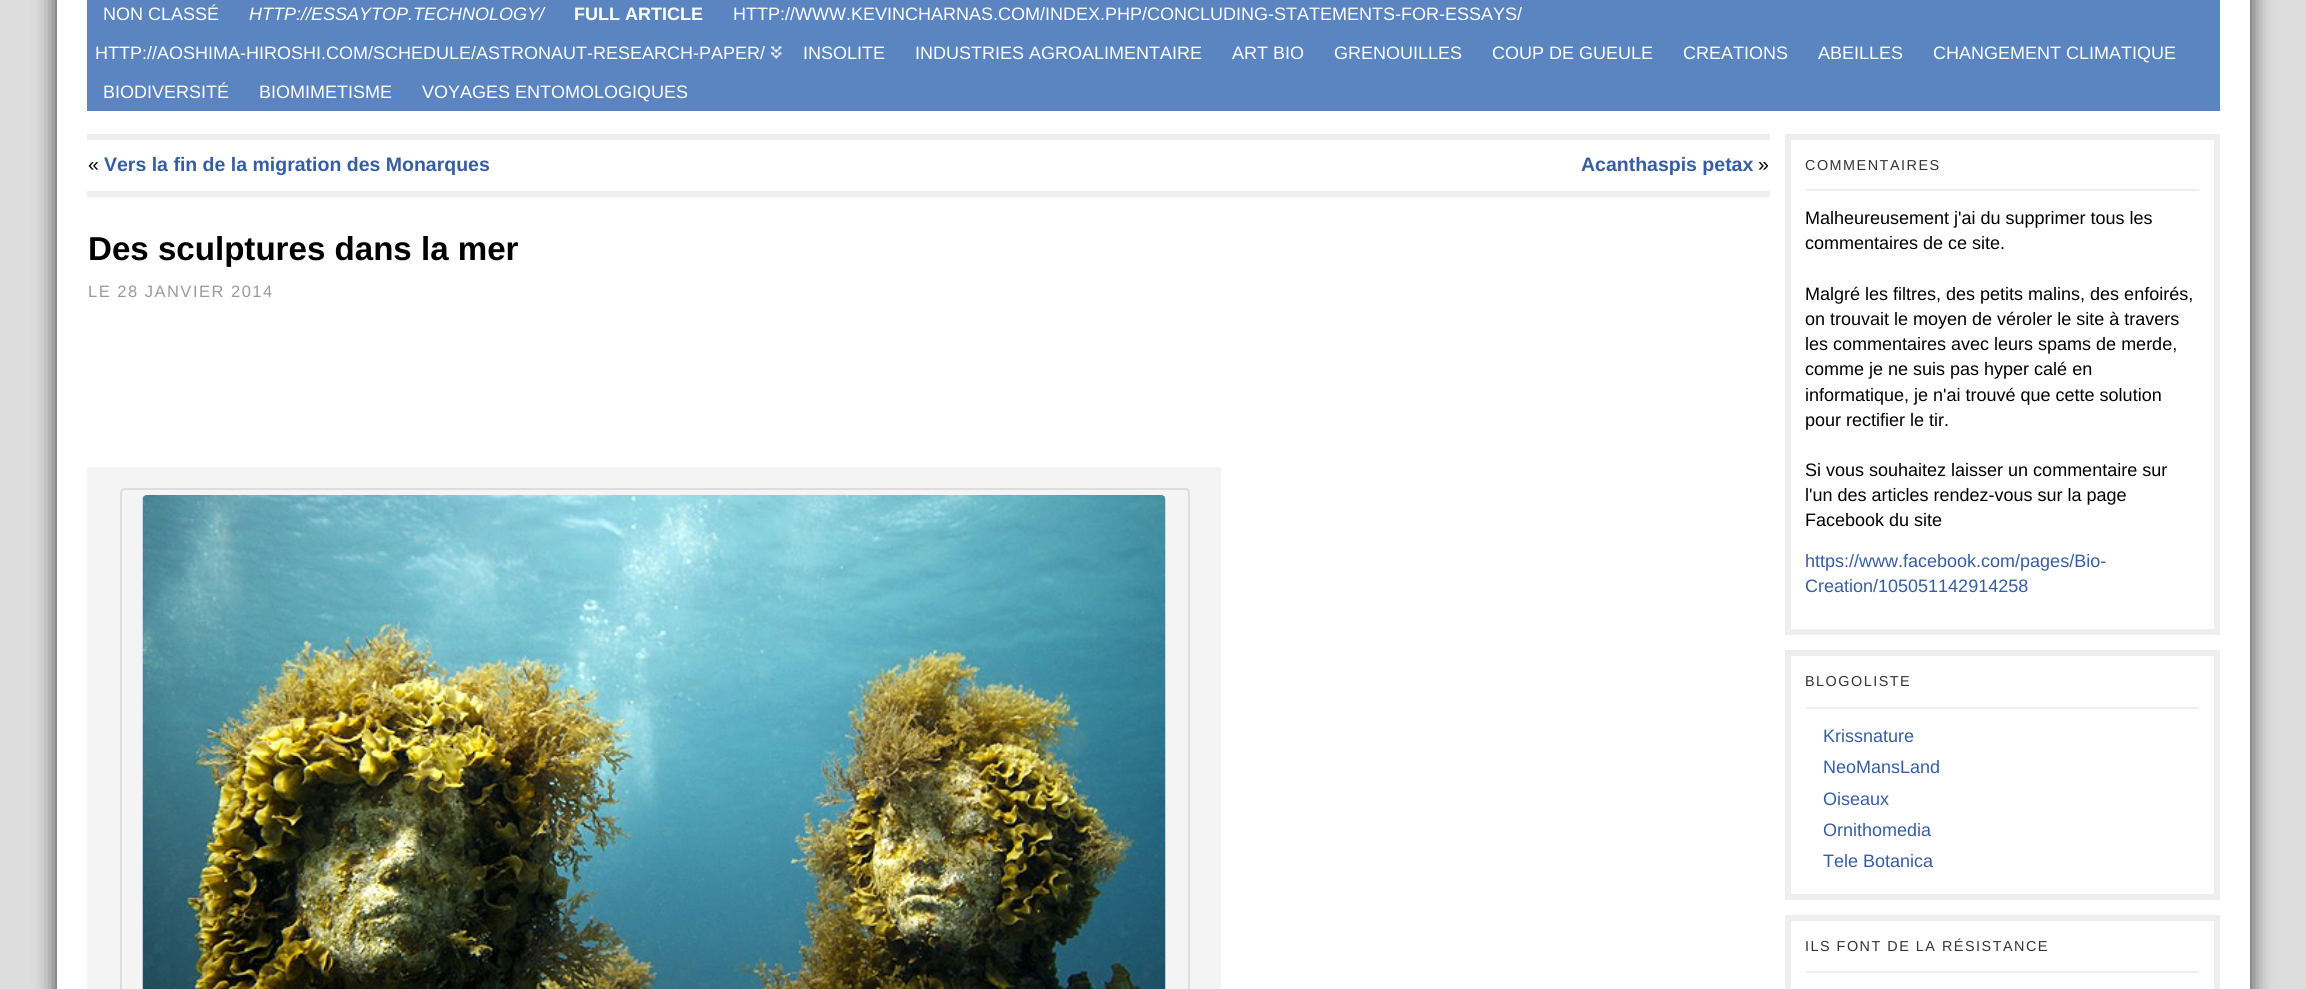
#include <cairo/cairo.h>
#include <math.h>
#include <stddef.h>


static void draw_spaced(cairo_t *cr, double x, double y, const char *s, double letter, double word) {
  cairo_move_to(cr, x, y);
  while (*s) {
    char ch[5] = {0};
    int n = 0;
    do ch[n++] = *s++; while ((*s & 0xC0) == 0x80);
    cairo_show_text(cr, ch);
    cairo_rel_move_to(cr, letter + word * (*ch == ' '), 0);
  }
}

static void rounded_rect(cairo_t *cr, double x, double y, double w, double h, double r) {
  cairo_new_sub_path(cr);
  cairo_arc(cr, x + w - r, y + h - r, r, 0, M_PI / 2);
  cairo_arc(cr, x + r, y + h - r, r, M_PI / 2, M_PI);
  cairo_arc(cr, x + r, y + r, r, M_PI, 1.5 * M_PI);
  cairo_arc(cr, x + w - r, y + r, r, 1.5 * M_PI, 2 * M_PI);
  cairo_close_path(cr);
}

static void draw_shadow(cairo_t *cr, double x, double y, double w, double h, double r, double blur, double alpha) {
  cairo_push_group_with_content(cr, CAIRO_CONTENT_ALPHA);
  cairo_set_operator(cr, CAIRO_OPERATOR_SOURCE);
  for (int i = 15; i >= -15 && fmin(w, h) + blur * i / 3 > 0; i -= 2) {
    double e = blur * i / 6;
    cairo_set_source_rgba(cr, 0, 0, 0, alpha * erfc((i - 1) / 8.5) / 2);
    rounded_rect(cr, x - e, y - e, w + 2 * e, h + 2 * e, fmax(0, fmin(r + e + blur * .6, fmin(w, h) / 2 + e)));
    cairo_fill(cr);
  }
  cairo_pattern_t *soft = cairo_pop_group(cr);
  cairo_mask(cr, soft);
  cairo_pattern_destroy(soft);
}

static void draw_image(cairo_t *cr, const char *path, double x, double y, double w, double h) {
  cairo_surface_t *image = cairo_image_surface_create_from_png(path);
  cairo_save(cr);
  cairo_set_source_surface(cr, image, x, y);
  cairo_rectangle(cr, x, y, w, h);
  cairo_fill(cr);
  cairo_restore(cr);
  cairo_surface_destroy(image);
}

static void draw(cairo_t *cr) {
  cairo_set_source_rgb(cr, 221 / 255.0, 221 / 255.0, 221 / 255.0);
  cairo_paint(cr);
  cairo_set_source_rgb(cr, 51 / 255.0, 51 / 255.0, 51 / 255.0);
  draw_shadow(cr, 57, -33, 2193, 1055, 0, 11, 1);
  cairo_set_source_rgb(cr, 1, 1, 1);
  cairo_rectangle(cr, 57, 0, 2193, 989);
  cairo_fill(cr);
  cairo_set_source_rgb(cr, 90 / 255.0, 133 / 255.0, 193 / 255.0);
  cairo_rectangle(cr, 87, 0, 2133, 111);
  cairo_fill(cr);
  draw_image(cr, "images/1.png", 771, 46, 11, 13);
  cairo_set_source_rgb(cr, 238 / 255.0, 238 / 255.0, 238 / 255.0);
  cairo_rectangle(cr, 87, 134, 1683, 6);
  cairo_fill(cr);
  cairo_rectangle(cr, 87, 191, 1683, 6);
  cairo_fill(cr);
  cairo_set_source_rgb(cr, 244 / 255.0, 244 / 255.0, 244 / 255.0);
  cairo_rectangle(cr, 87, 467, 1134, 522);
  cairo_fill(cr);
  rounded_rect(cr, 121, 489, 1068, 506, 4);
  cairo_set_source_rgb(cr, 221 / 255.0, 221 / 255.0, 221 / 255.0);
  cairo_stroke(cr);
  draw_image(cr, "images/2.png", 142, 495, 1024, 494);
  cairo_rectangle(cr, 1788, 137, 429, 495);
  cairo_set_source_rgb(cr, 238 / 255.0, 238 / 255.0, 238 / 255.0);
  cairo_set_line_width(cr, 6);
  cairo_stroke(cr);
  cairo_rectangle(cr, 1806, 189, 393, 2);
  cairo_fill(cr);
  cairo_rectangle(cr, 1788, 653, 429, 244);
  cairo_stroke(cr);
  cairo_rectangle(cr, 1806, 707, 393, 2);
  cairo_fill(cr);
  cairo_rectangle(cr, 1788, 918, 429, 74);
  cairo_stroke(cr);
  cairo_rectangle(cr, 1806, 971, 393, 2);
  cairo_fill(cr);
  cairo_select_font_face(cr, "Liberation Sans", CAIRO_FONT_SLANT_NORMAL, CAIRO_FONT_WEIGHT_NORMAL);
  cairo_set_font_size(cr, 18);
  cairo_set_source_rgb(cr, 1, 1, 1);
  cairo_move_to(cr, 103, 20);
  cairo_show_text(cr, "NON CLASSÉ");
  cairo_select_font_face(cr, "Liberation Sans", CAIRO_FONT_SLANT_ITALIC, CAIRO_FONT_WEIGHT_NORMAL);
  cairo_move_to(cr, 249, 20);
  cairo_show_text(cr, "HTTP://ESSAYTOP.TECHNOLOGY/");
  cairo_select_font_face(cr, "Liberation Sans", CAIRO_FONT_SLANT_NORMAL, CAIRO_FONT_WEIGHT_BOLD);
  cairo_move_to(cr, 574, 20);
  cairo_show_text(cr, "FULL ARTICLE");
  cairo_select_font_face(cr, "Liberation Sans", CAIRO_FONT_SLANT_NORMAL, CAIRO_FONT_WEIGHT_NORMAL);
  cairo_move_to(cr, 733, 20);
  cairo_show_text(cr, "HTTP://WWW.KEVINCHARNAS.COM/INDEX.PHP/CONCLUDING-STATEMENTS-FOR-ESSAYS/");
  cairo_move_to(cr, 95, 59);
  cairo_show_text(cr, "HTTP://AOSHIMA-HIROSHI.COM/SCHEDULE/ASTRONAUT-RESEARCH-PAPER/");
  cairo_move_to(cr, 803, 59);
  cairo_show_text(cr, "INSOLITE");
  cairo_move_to(cr, 915, 59);
  cairo_show_text(cr, "INDUSTRIES AGROALIMENTAIRE");
  cairo_move_to(cr, 1232, 59);
  cairo_show_text(cr, "ART BIO");
  cairo_move_to(cr, 1334, 59);
  cairo_show_text(cr, "GRENOUILLES");
  cairo_move_to(cr, 1492, 59);
  cairo_show_text(cr, "COUP DE GUEULE");
  cairo_move_to(cr, 1683, 59);
  cairo_show_text(cr, "CREATIONS");
  cairo_move_to(cr, 1818, 59);
  cairo_show_text(cr, "ABEILLES");
  cairo_move_to(cr, 1933, 59);
  cairo_show_text(cr, "CHANGEMENT CLIMATIQUE");
  cairo_move_to(cr, 103, 98);
  cairo_show_text(cr, "BIODIVERSITÉ");
  cairo_move_to(cr, 259, 98);
  cairo_show_text(cr, "BIOMIMETISME");
  cairo_move_to(cr, 422, 98);
  cairo_show_text(cr, "VOYAGES ENTOMOLOGIQUES");
  cairo_set_font_size(cr, 19.5);
  cairo_set_source_rgb(cr, 0, 0, 0);
  cairo_move_to(cr, 88, 171);
  cairo_show_text(cr, "«");
  cairo_select_font_face(cr, "Liberation Sans", CAIRO_FONT_SLANT_NORMAL, CAIRO_FONT_WEIGHT_BOLD);
  cairo_set_source_rgb(cr, 54 / 255.0, 93 / 255.0, 160 / 255.0);
  cairo_move_to(cr, 104, 171);
  cairo_show_text(cr, "Vers la fin de la migration des Monarques");
  cairo_move_to(cr, 1581, 171);
  cairo_show_text(cr, "Acanthaspis petax");
  cairo_select_font_face(cr, "Liberation Sans", CAIRO_FONT_SLANT_NORMAL, CAIRO_FONT_WEIGHT_NORMAL);
  cairo_set_source_rgb(cr, 0, 0, 0);
  cairo_move_to(cr, 1758, 171);
  cairo_show_text(cr, "»");
  cairo_select_font_face(cr, "Liberation Sans", CAIRO_FONT_SLANT_NORMAL, CAIRO_FONT_WEIGHT_BOLD);
  cairo_set_font_size(cr, 33.1);
  cairo_move_to(cr, 88, 260);
  cairo_show_text(cr, "Des sculptures dans la mer");
  cairo_select_font_face(cr, "Liberation Sans", CAIRO_FONT_SLANT_NORMAL, CAIRO_FONT_WEIGHT_NORMAL);
  cairo_set_font_size(cr, 16.5);
  cairo_set_source_rgb(cr, 153 / 255.0, 153 / 255.0, 153 / 255.0);
  draw_spaced(cr, 88, 297, "LE 28 JANVIER 2014", 1.5, 0);
  cairo_set_font_size(cr, 14.4);
  cairo_set_source_rgb(cr, 51 / 255.0, 51 / 255.0, 51 / 255.0);
  draw_spaced(cr, 1805, 170, "COMMENTAIRES", 1.5, 0);
  cairo_set_font_size(cr, 18);
  cairo_set_source_rgb(cr, 0, 0, 0);
  cairo_move_to(cr, 1805, 224);
  cairo_show_text(cr, "Malheureusement j'ai du supprimer tous les");
  cairo_move_to(cr, 1805, 249);
  cairo_show_text(cr, "commentaires de ce site.");
  cairo_move_to(cr, 1805, 300);
  cairo_show_text(cr, "Malgré les filtres, des petits malins, des enfoirés,");
  cairo_move_to(cr, 1805, 325);
  cairo_show_text(cr, "on trouvait le moyen de véroler le site à travers");
  cairo_move_to(cr, 1805, 350);
  cairo_show_text(cr, "les commentaires avec leurs spams de merde,");
  cairo_move_to(cr, 1805, 375);
  cairo_show_text(cr, "comme je ne suis pas hyper calé en");
  cairo_move_to(cr, 1805, 401);
  cairo_show_text(cr, "informatique, je n'ai trouvé que cette solution");
  cairo_move_to(cr, 1805, 426);
  cairo_show_text(cr, "pour rectifier le tir.");
  cairo_move_to(cr, 1805, 476);
  cairo_show_text(cr, "Si vous souhaitez laisser un commentaire sur");
  cairo_move_to(cr, 1805, 501);
  cairo_show_text(cr, "l'un des articles rendez-vous sur la page");
  cairo_move_to(cr, 1805, 526);
  cairo_show_text(cr, "Facebook du site");
  cairo_set_source_rgb(cr, 54 / 255.0, 93 / 255.0, 160 / 255.0);
  cairo_move_to(cr, 1805, 567);
  cairo_show_text(cr, "https://www.facebook.com/pages/Bio-");
  cairo_move_to(cr, 1805, 592);
  cairo_show_text(cr, "Creation/105051142914258");
  cairo_set_font_size(cr, 14.4);
  cairo_set_source_rgb(cr, 51 / 255.0, 51 / 255.0, 51 / 255.0);
  draw_spaced(cr, 1805, 686, "BLOGOLISTE", 1.5, 0);
  cairo_set_font_size(cr, 18);
  cairo_set_source_rgb(cr, 54 / 255.0, 93 / 255.0, 160 / 255.0);
  cairo_move_to(cr, 1823, 742);
  cairo_show_text(cr, "Krissnature");
  cairo_move_to(cr, 1823, 773);
  cairo_show_text(cr, "NeoMansLand");
  cairo_move_to(cr, 1823, 805);
  cairo_show_text(cr, "Oiseaux");
  cairo_move_to(cr, 1823, 836);
  cairo_show_text(cr, "Ornithomedia");
  cairo_move_to(cr, 1823, 867);
  cairo_show_text(cr, "Tele Botanica");
  cairo_set_font_size(cr, 14.4);
  cairo_set_source_rgb(cr, 51 / 255.0, 51 / 255.0, 51 / 255.0);
  draw_spaced(cr, 1805, 951, "ILS FONT DE LA RÉSISTANCE", 1.5, 0);
}

int main(void) {
  cairo_surface_t *surface = cairo_image_surface_create(CAIRO_FORMAT_RGB24, 2306, 989);
  cairo_t *cr = cairo_create(surface);
  cairo_font_options_t *options = cairo_font_options_create();
  cairo_font_options_set_hint_metrics(options, CAIRO_HINT_METRICS_OFF);
  cairo_font_options_set_hint_style(options, CAIRO_HINT_STYLE_NONE);
  cairo_set_font_options(cr, options);
  cairo_set_miter_limit(cr, 4);
  draw(cr);
  cairo_surface_write_to_png(surface, "out.png");
  cairo_font_options_destroy(options);
  cairo_destroy(cr);
  cairo_surface_destroy(surface);
  return 0;
}
